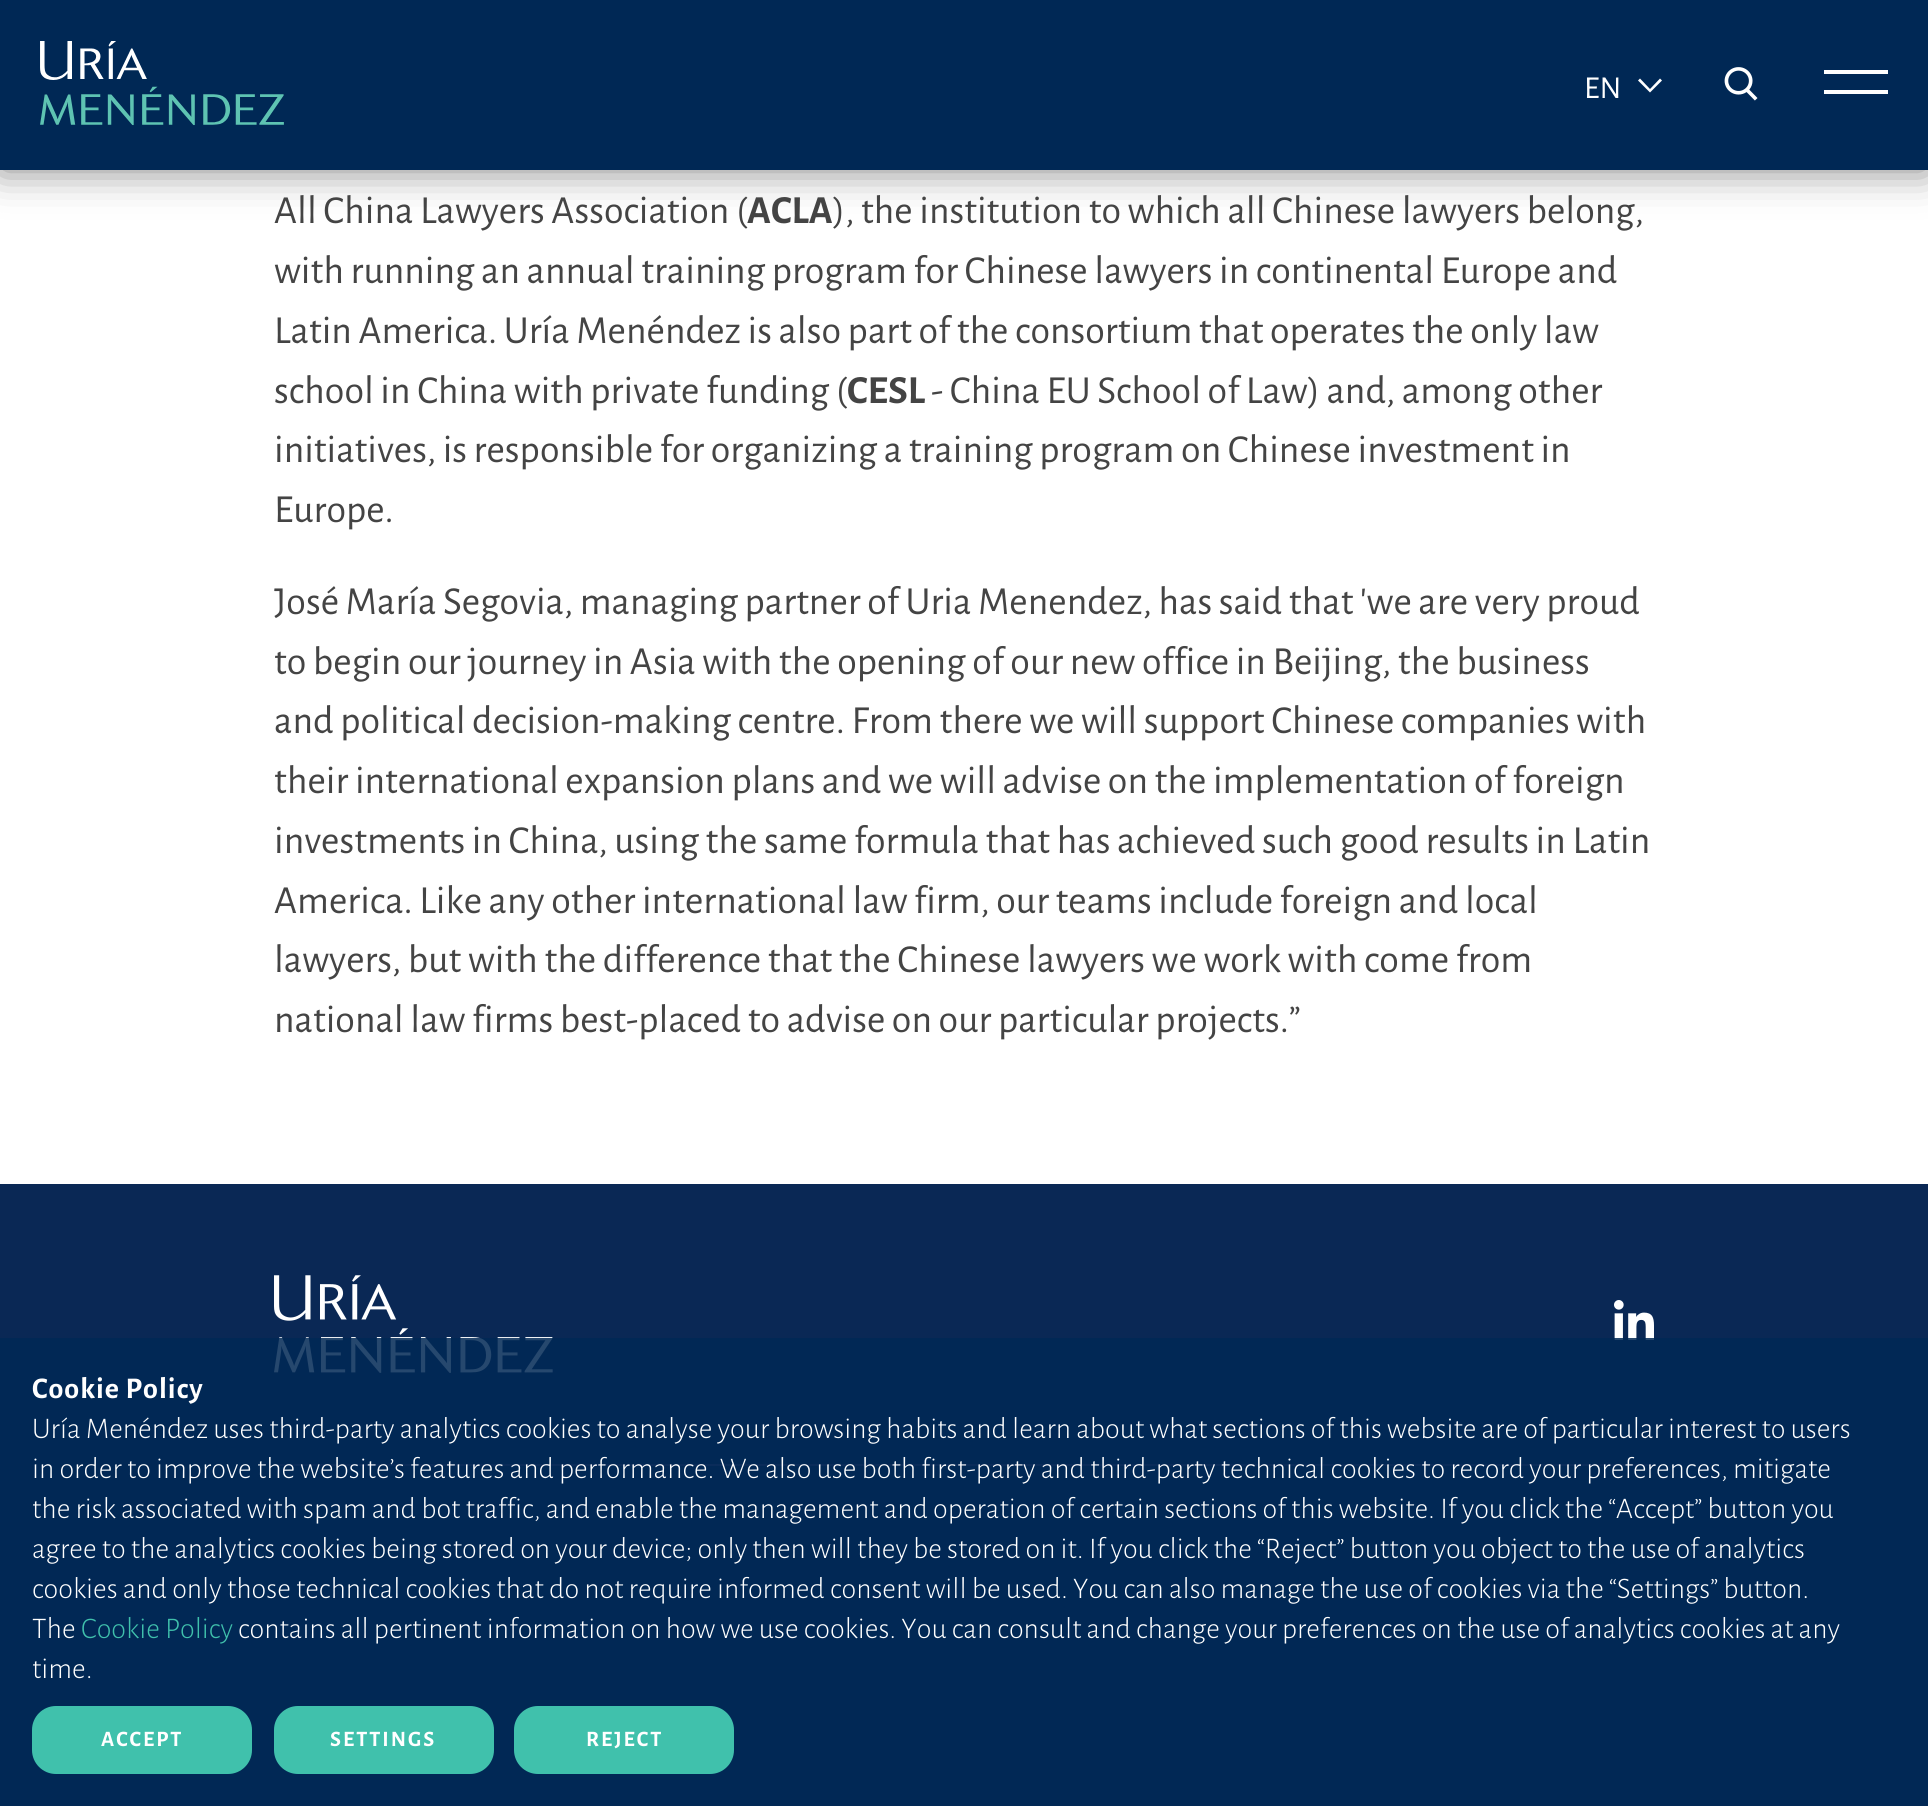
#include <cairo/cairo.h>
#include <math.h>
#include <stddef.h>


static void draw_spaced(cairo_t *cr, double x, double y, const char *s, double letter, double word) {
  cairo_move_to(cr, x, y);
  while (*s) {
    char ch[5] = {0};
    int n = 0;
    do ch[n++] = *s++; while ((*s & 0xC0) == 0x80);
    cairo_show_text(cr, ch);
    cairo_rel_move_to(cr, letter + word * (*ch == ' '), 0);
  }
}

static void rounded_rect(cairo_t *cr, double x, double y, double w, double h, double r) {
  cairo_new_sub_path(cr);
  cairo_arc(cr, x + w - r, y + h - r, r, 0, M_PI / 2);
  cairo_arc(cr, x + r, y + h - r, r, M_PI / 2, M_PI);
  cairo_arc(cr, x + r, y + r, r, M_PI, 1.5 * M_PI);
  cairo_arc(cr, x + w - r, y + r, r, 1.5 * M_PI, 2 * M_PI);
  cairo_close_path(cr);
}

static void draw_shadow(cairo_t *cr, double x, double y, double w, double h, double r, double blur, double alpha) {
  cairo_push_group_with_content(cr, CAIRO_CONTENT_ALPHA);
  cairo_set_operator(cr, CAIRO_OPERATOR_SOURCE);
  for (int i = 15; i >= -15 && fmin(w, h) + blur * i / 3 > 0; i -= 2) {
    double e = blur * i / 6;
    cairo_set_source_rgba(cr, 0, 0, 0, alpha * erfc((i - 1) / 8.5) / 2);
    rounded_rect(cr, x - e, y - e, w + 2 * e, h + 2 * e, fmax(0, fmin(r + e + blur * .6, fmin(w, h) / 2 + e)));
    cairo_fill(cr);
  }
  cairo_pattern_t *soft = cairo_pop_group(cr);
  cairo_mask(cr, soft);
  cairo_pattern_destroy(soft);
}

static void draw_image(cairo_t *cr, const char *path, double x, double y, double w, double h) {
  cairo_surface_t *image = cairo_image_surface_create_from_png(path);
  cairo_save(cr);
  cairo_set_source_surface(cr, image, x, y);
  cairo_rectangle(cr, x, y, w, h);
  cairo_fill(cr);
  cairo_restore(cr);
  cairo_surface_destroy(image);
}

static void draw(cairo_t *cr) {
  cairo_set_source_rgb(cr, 1, 1, 1);
  cairo_paint(cr);
  cairo_set_source_rgb(cr, 0, 0, 0);
  draw_shadow(cr, 0, 0, 1928, 170, 0, 20, 0.5);
  cairo_set_source_rgb(cr, 0, 40 / 255.0, 85 / 255.0);
  cairo_rectangle(cr, 0, 0, 1928, 170);
  cairo_fill(cr);
  draw_image(cr, "images/1.png", 40, 41, 244, 85);
  cairo_set_source_rgb(cr, 1, 1, 1);
  cairo_new_path(cr);
  cairo_move_to(cr, 1662, 80.5);
  cairo_line_to(cr, 1660, 78.5);
  cairo_line_to(cr, 1650, 89);
  cairo_line_to(cr, 1640, 78.5);
  cairo_line_to(cr, 1638, 80.5);
  cairo_line_to(cr, 1650, 92.5);
  cairo_close_path(cr);
  cairo_fill(cr);
  draw_image(cr, "images/2.png", 1724, 67, 34, 34);
  cairo_rectangle(cr, 1824, 70, 64, 4);
  cairo_fill(cr);
  cairo_rectangle(cr, 1824, 90, 64, 4);
  cairo_fill(cr);
  cairo_set_source_rgb(cr, 10 / 255.0, 40 / 255.0, 85 / 255.0);
  cairo_rectangle(cr, 0, 1184, 1928, 622);
  cairo_fill(cr);
  draw_image(cr, "images/3.png", 274, 1275, 279, 98);
  draw_image(cr, "images/4.png", 1614, 1300, 40, 40);
  cairo_set_source_rgb(cr, 65 / 255.0, 68 / 255.0, 122 / 255.0);
  cairo_rectangle(cr, 274, 1464, 1380, 2);
  cairo_fill(cr);
  cairo_set_source_rgba(cr, 0, 40 / 255.0, 85 / 255.0, 0.85);
  cairo_rectangle(cr, 0, 1338, 1928, 468);
  cairo_fill(cr);
  cairo_set_source_rgb(cr, 64 / 255.0, 193 / 255.0, 172 / 255.0);
  rounded_rect(cr, 32, 1706, 220, 68, 24);
  cairo_fill(cr);
  rounded_rect(cr, 274, 1706, 220, 68, 24);
  cairo_fill(cr);
  rounded_rect(cr, 514, 1706, 220, 68, 24);
  cairo_fill(cr);
  cairo_select_font_face(cr, "Alegreya Sans", CAIRO_FONT_SLANT_NORMAL, CAIRO_FONT_WEIGHT_NORMAL);
  cairo_set_font_size(cr, 32);
  cairo_set_source_rgb(cr, 1, 1, 1);
  cairo_move_to(cr, 1584, 98);
  cairo_show_text(cr, "EN");
  cairo_set_font_size(cr, 39.85);
  cairo_set_source_rgb(cr, 68 / 255.0, 68 / 255.0, 68 / 255.0);
  cairo_move_to(cr, 274, 223);
  cairo_show_text(cr, "All China Lawyers Association (");
  cairo_select_font_face(cr, "Alegreya Sans", CAIRO_FONT_SLANT_NORMAL, CAIRO_FONT_WEIGHT_BOLD);
  cairo_move_to(cr, 747, 223);
  cairo_show_text(cr, "ACLA");
  cairo_select_font_face(cr, "Alegreya Sans", CAIRO_FONT_SLANT_NORMAL, CAIRO_FONT_WEIGHT_NORMAL);
  cairo_move_to(cr, 833, 223);
  cairo_show_text(cr, "), the institution to which all Chinese lawyers belong,");
  cairo_move_to(cr, 274, 283);
  cairo_show_text(cr, "with running an annual training program for Chinese lawyers in continental Europe and");
  cairo_move_to(cr, 274, 343);
  cairo_show_text(cr, "Latin America. Uría Menéndez is also part of the consortium that operates the only law");
  cairo_move_to(cr, 274, 403);
  cairo_show_text(cr, "school in China with private funding (");
  cairo_select_font_face(cr, "Alegreya Sans", CAIRO_FONT_SLANT_NORMAL, CAIRO_FONT_WEIGHT_BOLD);
  cairo_move_to(cr, 847, 403);
  cairo_show_text(cr, "CESL");
  cairo_select_font_face(cr, "Alegreya Sans", CAIRO_FONT_SLANT_NORMAL, CAIRO_FONT_WEIGHT_NORMAL);
  cairo_move_to(cr, 931, 403);
  cairo_show_text(cr, "- China EU School of Law) and, among other");
  cairo_move_to(cr, 274, 462);
  cairo_show_text(cr, "initiatives, is responsible for organizing a training program on Chinese investment in");
  cairo_move_to(cr, 274, 522);
  cairo_show_text(cr, "Europe.");
  cairo_move_to(cr, 274, 614);
  cairo_show_text(cr, "José María Segovia, managing partner of Uria Menendez, has said that 'we are very proud");
  cairo_move_to(cr, 274, 674);
  cairo_show_text(cr, "to begin our journey in Asia with the opening of our new office in Beijing, the business");
  cairo_move_to(cr, 274, 733);
  cairo_show_text(cr, "and political decision-making centre. From there we will support Chinese companies with");
  cairo_move_to(cr, 274, 793);
  cairo_show_text(cr, "their international expansion plans and we will advise on the implementation of foreign");
  cairo_move_to(cr, 274, 853);
  cairo_show_text(cr, "investments in China, using the same formula that has achieved such good results in Latin");
  cairo_move_to(cr, 274, 913);
  cairo_show_text(cr, "America. Like any other international law firm, our teams include foreign and local");
  cairo_move_to(cr, 274, 972);
  cairo_show_text(cr, "lawyers, but with the difference that the Chinese lawyers we work with come from");
  cairo_move_to(cr, 274, 1032);
  cairo_show_text(cr, "national law firms best-placed to advise on our particular projects.”");
  cairo_select_font_face(cr, "Alegreya Sans", CAIRO_FONT_SLANT_NORMAL, CAIRO_FONT_WEIGHT_BOLD);
  cairo_set_font_size(cr, 30);
  cairo_set_source_rgb(cr, 1, 1, 1);
  draw_spaced(cr, 32, 1398, "Cookie Policy", 1, 0);
  cairo_select_font_face(cr, "Alegreya Sans Light", CAIRO_FONT_SLANT_NORMAL, CAIRO_FONT_WEIGHT_NORMAL);
  cairo_move_to(cr, 32, 1438);
  cairo_show_text(cr, "Uría Menéndez uses third-party analytics cookies to analyse your browsing habits and learn about what sections of this website are of particular interest to users");
  cairo_move_to(cr, 32, 1478);
  cairo_show_text(cr, "in order to improve the website’s features and performance. We also use both first-party and third-party technical cookies to record your preferences, mitigate");
  cairo_move_to(cr, 32, 1518);
  cairo_show_text(cr, "the risk associated with spam and bot traffic, and enable the management and operation of certain sections of this website. If you click the “Accept” button you");
  cairo_move_to(cr, 32, 1558);
  cairo_show_text(cr, "agree to the analytics cookies being stored on your device; only then will they be stored on it. If you click the “Reject” button you object to the use of analytics");
  cairo_move_to(cr, 32, 1598);
  cairo_show_text(cr, "cookies and only those technical cookies that do not require informed consent will be used. You can also manage the use of cookies via the “Settings” button.");
  cairo_move_to(cr, 32, 1638);
  cairo_show_text(cr, "The");
  cairo_set_source_rgb(cr, 64 / 255.0, 193 / 255.0, 172 / 255.0);
  cairo_move_to(cr, 81, 1638);
  cairo_show_text(cr, "Cookie Policy");
  cairo_set_source_rgb(cr, 1, 1, 1);
  cairo_move_to(cr, 238, 1638);
  cairo_show_text(cr, "contains all pertinent information on how we use cookies. You can consult and change your preferences on the use of analytics cookies at any");
  cairo_move_to(cr, 32, 1678);
  cairo_show_text(cr, "time.");
  cairo_select_font_face(cr, "Alegreya Sans", CAIRO_FONT_SLANT_NORMAL, CAIRO_FONT_WEIGHT_BOLD);
  cairo_set_font_size(cr, 22);
  draw_spaced(cr, 101, 1746, "ACCEPT", 2, 0);
  draw_spaced(cr, 330, 1746, "SETTINGS", 2, 0);
  draw_spaced(cr, 586, 1746, "REJECT", 2, 0);
}

int main(void) {
  cairo_surface_t *surface = cairo_image_surface_create(CAIRO_FORMAT_RGB24, 1928, 1808);
  cairo_t *cr = cairo_create(surface);
  cairo_font_options_t *options = cairo_font_options_create();
  cairo_font_options_set_hint_metrics(options, CAIRO_HINT_METRICS_OFF);
  cairo_font_options_set_hint_style(options, CAIRO_HINT_STYLE_NONE);
  cairo_set_font_options(cr, options);
  cairo_set_miter_limit(cr, 4);
  draw(cr);
  cairo_surface_write_to_png(surface, "out.png");
  cairo_font_options_destroy(options);
  cairo_destroy(cr);
  cairo_surface_destroy(surface);
  return 0;
}
